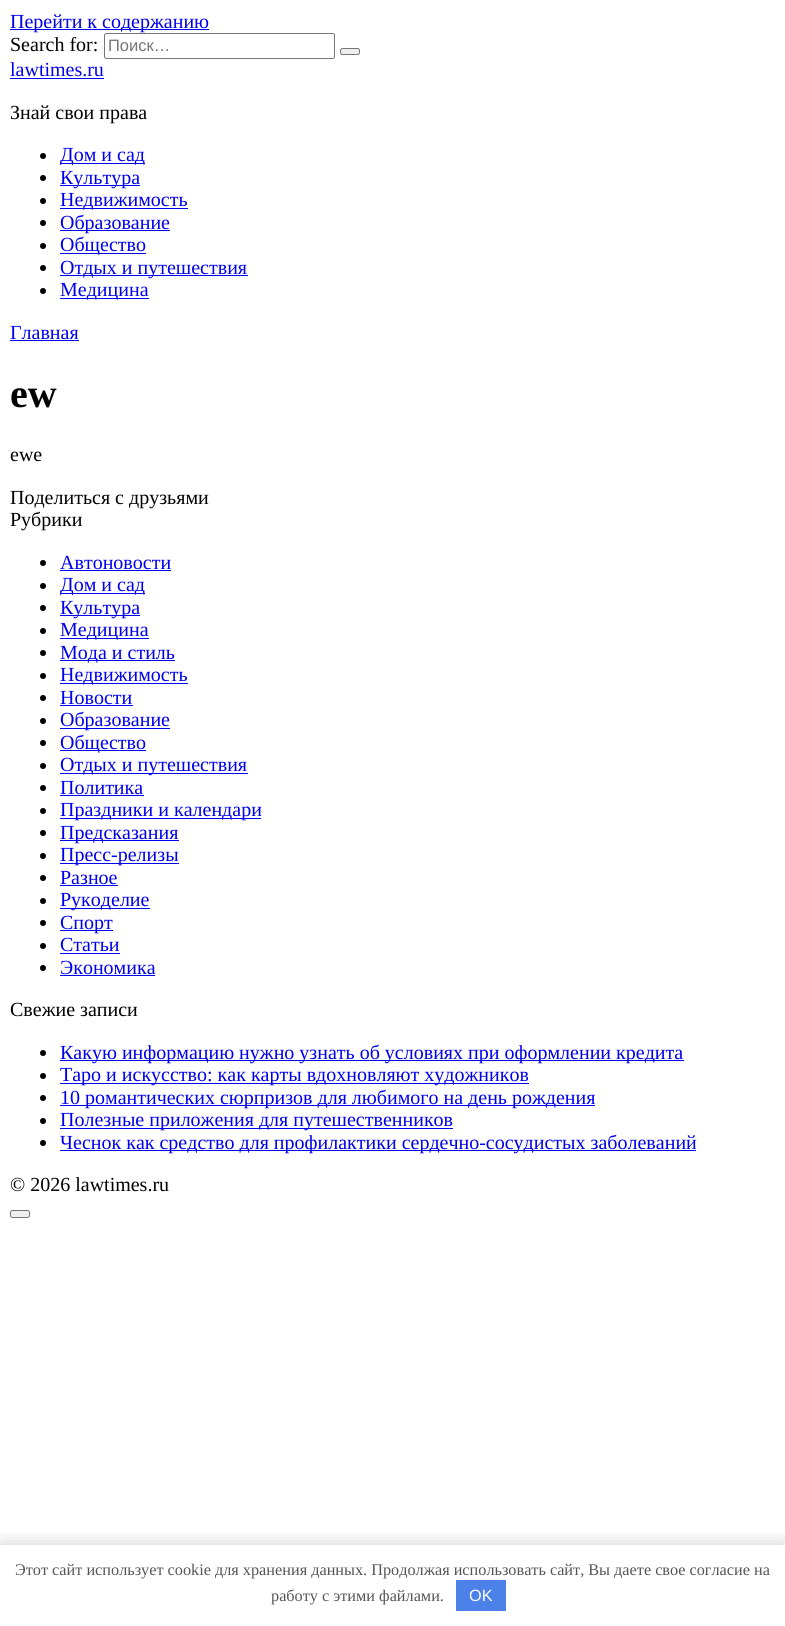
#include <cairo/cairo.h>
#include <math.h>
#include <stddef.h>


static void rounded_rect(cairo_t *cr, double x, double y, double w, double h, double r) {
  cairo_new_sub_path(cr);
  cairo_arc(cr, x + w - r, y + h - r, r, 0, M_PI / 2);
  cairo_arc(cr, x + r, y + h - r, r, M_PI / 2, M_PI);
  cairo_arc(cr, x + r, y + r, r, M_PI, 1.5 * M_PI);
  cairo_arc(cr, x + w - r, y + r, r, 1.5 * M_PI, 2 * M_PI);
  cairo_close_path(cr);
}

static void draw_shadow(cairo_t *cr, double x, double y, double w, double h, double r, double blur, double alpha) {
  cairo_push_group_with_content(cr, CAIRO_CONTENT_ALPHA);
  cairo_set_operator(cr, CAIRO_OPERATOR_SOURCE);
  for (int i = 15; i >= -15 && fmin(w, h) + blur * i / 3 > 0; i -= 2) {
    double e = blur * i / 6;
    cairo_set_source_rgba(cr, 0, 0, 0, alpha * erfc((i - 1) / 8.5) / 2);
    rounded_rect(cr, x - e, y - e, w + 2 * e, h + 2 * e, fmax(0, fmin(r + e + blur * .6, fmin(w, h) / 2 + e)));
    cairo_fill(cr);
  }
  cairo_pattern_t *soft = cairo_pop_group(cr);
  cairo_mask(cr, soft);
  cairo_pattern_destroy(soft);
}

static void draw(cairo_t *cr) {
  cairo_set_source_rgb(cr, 1, 1, 1);
  cairo_paint(cr);
  cairo_set_source_rgb(cr, 0, 0, 238 / 255.0);
  cairo_rectangle(cr, 10, 29, 199, 1);
  cairo_fill(cr);
  rounded_rect(cr, 104.5, 33.5, 230, 25, 2);
  cairo_set_source_rgb(cr, 118 / 255.0, 118 / 255.0, 118 / 255.0);
  cairo_set_line_width(cr, 1);
  cairo_stroke(cr);
  cairo_set_source_rgb(cr, 239 / 255.0, 239 / 255.0, 239 / 255.0);
  rounded_rect(cr, 340.5, 48.5, 19, 6, 2);
  cairo_fill_preserve(cr);
  cairo_set_source_rgb(cr, 118 / 255.0, 118 / 255.0, 118 / 255.0);
  cairo_stroke(cr);
  cairo_set_source_rgb(cr, 0, 0, 238 / 255.0);
  cairo_rectangle(cr, 10, 78, 94, 1);
  cairo_fill(cr);
  cairo_set_source_rgb(cr, 0, 0, 0);
  cairo_arc(cr, 43, 156, 3, 0, 2 * M_PI);
  cairo_fill(cr);
  cairo_set_source_rgb(cr, 0, 0, 238 / 255.0);
  cairo_rectangle(cr, 60, 163, 85, 1);
  cairo_fill(cr);
  cairo_set_source_rgb(cr, 0, 0, 0);
  cairo_arc(cr, 43, 178, 3, 0, 2 * M_PI);
  cairo_fill(cr);
  cairo_set_source_rgb(cr, 0, 0, 238 / 255.0);
  cairo_rectangle(cr, 60, 185, 80, 1);
  cairo_fill(cr);
  cairo_set_source_rgb(cr, 0, 0, 0);
  cairo_arc(cr, 43, 201, 3, 0, 2 * M_PI);
  cairo_fill(cr);
  cairo_set_source_rgb(cr, 0, 0, 238 / 255.0);
  cairo_rectangle(cr, 60, 208, 128, 1);
  cairo_fill(cr);
  cairo_set_source_rgb(cr, 0, 0, 0);
  cairo_arc(cr, 43, 223, 3, 0, 2 * M_PI);
  cairo_fill(cr);
  cairo_set_source_rgb(cr, 0, 0, 238 / 255.0);
  cairo_rectangle(cr, 60, 230, 110, 1);
  cairo_fill(cr);
  cairo_set_source_rgb(cr, 0, 0, 0);
  cairo_arc(cr, 43, 246, 3, 0, 2 * M_PI);
  cairo_fill(cr);
  cairo_set_source_rgb(cr, 0, 0, 238 / 255.0);
  cairo_rectangle(cr, 60, 253, 86, 1);
  cairo_fill(cr);
  cairo_set_source_rgb(cr, 0, 0, 0);
  cairo_arc(cr, 43, 268, 3, 0, 2 * M_PI);
  cairo_fill(cr);
  cairo_set_source_rgb(cr, 0, 0, 238 / 255.0);
  cairo_rectangle(cr, 60, 275, 188, 1);
  cairo_fill(cr);
  cairo_set_source_rgb(cr, 0, 0, 0);
  cairo_arc(cr, 43, 291, 3, 0, 2 * M_PI);
  cairo_fill(cr);
  cairo_set_source_rgb(cr, 0, 0, 238 / 255.0);
  cairo_rectangle(cr, 60, 298, 89, 1);
  cairo_fill(cr);
  cairo_rectangle(cr, 10, 340, 69, 1);
  cairo_fill(cr);
  cairo_set_source_rgb(cr, 0, 0, 0);
  cairo_arc(cr, 43, 563, 3, 0, 2 * M_PI);
  cairo_fill(cr);
  cairo_set_source_rgb(cr, 0, 0, 238 / 255.0);
  cairo_rectangle(cr, 60, 570, 111, 1);
  cairo_fill(cr);
  cairo_set_source_rgb(cr, 0, 0, 0);
  cairo_arc(cr, 43, 586, 3, 0, 2 * M_PI);
  cairo_fill(cr);
  cairo_set_source_rgb(cr, 0, 0, 238 / 255.0);
  cairo_rectangle(cr, 60, 593, 85, 1);
  cairo_fill(cr);
  cairo_set_source_rgb(cr, 0, 0, 0);
  cairo_arc(cr, 43, 608, 3, 0, 2 * M_PI);
  cairo_fill(cr);
  cairo_set_source_rgb(cr, 0, 0, 238 / 255.0);
  cairo_rectangle(cr, 60, 615, 80, 1);
  cairo_fill(cr);
  cairo_set_source_rgb(cr, 0, 0, 0);
  cairo_arc(cr, 43, 631, 3, 0, 2 * M_PI);
  cairo_fill(cr);
  cairo_set_source_rgb(cr, 0, 0, 238 / 255.0);
  cairo_rectangle(cr, 60, 638, 89, 1);
  cairo_fill(cr);
  cairo_set_source_rgb(cr, 0, 0, 0);
  cairo_arc(cr, 43, 653, 3, 0, 2 * M_PI);
  cairo_fill(cr);
  cairo_set_source_rgb(cr, 0, 0, 238 / 255.0);
  cairo_rectangle(cr, 60, 660, 115, 1);
  cairo_fill(cr);
  cairo_set_source_rgb(cr, 0, 0, 0);
  cairo_arc(cr, 43, 676, 3, 0, 2 * M_PI);
  cairo_fill(cr);
  cairo_set_source_rgb(cr, 0, 0, 238 / 255.0);
  cairo_rectangle(cr, 60, 683, 128, 1);
  cairo_fill(cr);
  cairo_set_source_rgb(cr, 0, 0, 0);
  cairo_arc(cr, 43, 698, 3, 0, 2 * M_PI);
  cairo_fill(cr);
  cairo_set_source_rgb(cr, 0, 0, 238 / 255.0);
  cairo_rectangle(cr, 60, 705, 73, 1);
  cairo_fill(cr);
  cairo_set_source_rgb(cr, 0, 0, 0);
  cairo_arc(cr, 43, 721, 3, 0, 2 * M_PI);
  cairo_fill(cr);
  cairo_set_source_rgb(cr, 0, 0, 238 / 255.0);
  cairo_rectangle(cr, 60, 728, 110, 1);
  cairo_fill(cr);
  cairo_set_source_rgb(cr, 0, 0, 0);
  cairo_arc(cr, 43, 743, 3, 0, 2 * M_PI);
  cairo_fill(cr);
  cairo_set_source_rgb(cr, 0, 0, 238 / 255.0);
  cairo_rectangle(cr, 60, 750, 86, 1);
  cairo_fill(cr);
  cairo_set_source_rgb(cr, 0, 0, 0);
  cairo_arc(cr, 43, 766, 3, 0, 2 * M_PI);
  cairo_fill(cr);
  cairo_set_source_rgb(cr, 0, 0, 238 / 255.0);
  cairo_rectangle(cr, 60, 773, 188, 1);
  cairo_fill(cr);
  cairo_set_source_rgb(cr, 0, 0, 0);
  cairo_arc(cr, 43, 788, 3, 0, 2 * M_PI);
  cairo_fill(cr);
  cairo_set_source_rgb(cr, 0, 0, 238 / 255.0);
  cairo_rectangle(cr, 60, 795, 84, 1);
  cairo_fill(cr);
  cairo_set_source_rgb(cr, 0, 0, 0);
  cairo_arc(cr, 43, 811, 3, 0, 2 * M_PI);
  cairo_fill(cr);
  cairo_set_source_rgb(cr, 0, 0, 238 / 255.0);
  cairo_rectangle(cr, 60, 818, 201, 1);
  cairo_fill(cr);
  cairo_set_source_rgb(cr, 0, 0, 0);
  cairo_arc(cr, 43, 833, 3, 0, 2 * M_PI);
  cairo_fill(cr);
  cairo_set_source_rgb(cr, 0, 0, 238 / 255.0);
  cairo_rectangle(cr, 60, 840, 119, 1);
  cairo_fill(cr);
  cairo_set_source_rgb(cr, 0, 0, 0);
  cairo_arc(cr, 43, 856, 3, 0, 2 * M_PI);
  cairo_fill(cr);
  cairo_set_source_rgb(cr, 0, 0, 238 / 255.0);
  cairo_rectangle(cr, 60, 863, 119, 1);
  cairo_fill(cr);
  cairo_set_source_rgb(cr, 0, 0, 0);
  cairo_arc(cr, 43, 878, 3, 0, 2 * M_PI);
  cairo_fill(cr);
  cairo_set_source_rgb(cr, 0, 0, 238 / 255.0);
  cairo_rectangle(cr, 60, 885, 58, 1);
  cairo_fill(cr);
  cairo_set_source_rgb(cr, 0, 0, 0);
  cairo_arc(cr, 43, 901, 3, 0, 2 * M_PI);
  cairo_fill(cr);
  cairo_set_source_rgb(cr, 0, 0, 238 / 255.0);
  cairo_rectangle(cr, 60, 908, 90, 1);
  cairo_fill(cr);
  cairo_set_source_rgb(cr, 0, 0, 0);
  cairo_arc(cr, 43, 923, 3, 0, 2 * M_PI);
  cairo_fill(cr);
  cairo_set_source_rgb(cr, 0, 0, 238 / 255.0);
  cairo_rectangle(cr, 60, 930, 53, 1);
  cairo_fill(cr);
  cairo_set_source_rgb(cr, 0, 0, 0);
  cairo_arc(cr, 43, 946, 3, 0, 2 * M_PI);
  cairo_fill(cr);
  cairo_set_source_rgb(cr, 0, 0, 238 / 255.0);
  cairo_rectangle(cr, 60, 953, 60, 1);
  cairo_fill(cr);
  cairo_set_source_rgb(cr, 0, 0, 0);
  cairo_arc(cr, 43, 968, 3, 0, 2 * M_PI);
  cairo_fill(cr);
  cairo_set_source_rgb(cr, 0, 0, 238 / 255.0);
  cairo_rectangle(cr, 60, 975, 95, 1);
  cairo_fill(cr);
  cairo_set_source_rgb(cr, 0, 0, 0);
  cairo_arc(cr, 43, 1053, 3, 0, 2 * M_PI);
  cairo_fill(cr);
  cairo_set_source_rgb(cr, 0, 0, 238 / 255.0);
  cairo_rectangle(cr, 60, 1060, 624, 1);
  cairo_fill(cr);
  cairo_set_source_rgb(cr, 0, 0, 0);
  cairo_arc(cr, 43, 1076, 3, 0, 2 * M_PI);
  cairo_fill(cr);
  cairo_set_source_rgb(cr, 0, 0, 238 / 255.0);
  cairo_rectangle(cr, 60, 1083, 469, 1);
  cairo_fill(cr);
  cairo_set_source_rgb(cr, 0, 0, 0);
  cairo_arc(cr, 43, 1098, 3, 0, 2 * M_PI);
  cairo_fill(cr);
  cairo_set_source_rgb(cr, 0, 0, 238 / 255.0);
  cairo_rectangle(cr, 60, 1105, 535, 1);
  cairo_fill(cr);
  cairo_set_source_rgb(cr, 0, 0, 0);
  cairo_arc(cr, 43, 1121, 3, 0, 2 * M_PI);
  cairo_fill(cr);
  cairo_set_source_rgb(cr, 0, 0, 238 / 255.0);
  cairo_rectangle(cr, 60, 1128, 393, 1);
  cairo_fill(cr);
  cairo_set_source_rgb(cr, 0, 0, 0);
  cairo_arc(cr, 43, 1143, 3, 0, 2 * M_PI);
  cairo_fill(cr);
  cairo_set_source_rgb(cr, 0, 0, 238 / 255.0);
  cairo_rectangle(cr, 60, 1150, 636, 1);
  cairo_fill(cr);
  cairo_set_source_rgb(cr, 239 / 255.0, 239 / 255.0, 239 / 255.0);
  rounded_rect(cr, 10.5, 1210.5, 19, 7, 2);
  cairo_fill_preserve(cr);
  cairo_set_source_rgb(cr, 118 / 255.0, 118 / 255.0, 118 / 255.0);
  cairo_stroke(cr);
  cairo_save(cr);
  cairo_rectangle(cr, 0, 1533, 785, 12);
  cairo_clip(cr);
  cairo_set_source_rgb(cr, 0, 0, 0);
  draw_shadow(cr, 0, 1545, 785, 81, 0, 9.5, 0.2);
  cairo_restore(cr);
  cairo_set_source_rgb(cr, 75 / 255.0, 129 / 255.0, 232 / 255.0);
  cairo_rectangle(cr, 456, 1580, 50, 31);
  cairo_fill(cr);
  cairo_select_font_face(cr, "Liberation Serif", CAIRO_FONT_SLANT_NORMAL, CAIRO_FONT_WEIGHT_NORMAL);
  cairo_set_font_size(cr, 20);
  cairo_set_source_rgb(cr, 0, 0, 238 / 255.0);
  cairo_move_to(cr, 10, 28);
  cairo_show_text(cr, "Перейти к содержанию");
  cairo_set_source_rgb(cr, 0, 0, 0);
  cairo_move_to(cr, 10, 51);
  cairo_show_text(cr, "Search for:");
  cairo_select_font_face(cr, "Liberation Sans", CAIRO_FONT_SLANT_NORMAL, CAIRO_FONT_WEIGHT_NORMAL);
  cairo_set_font_size(cr, 16.5);
  cairo_set_source_rgb(cr, 117 / 255.0, 117 / 255.0, 117 / 255.0);
  cairo_move_to(cr, 108, 51);
  cairo_show_text(cr, "Поиск…");
  cairo_select_font_face(cr, "Liberation Serif", CAIRO_FONT_SLANT_NORMAL, CAIRO_FONT_WEIGHT_NORMAL);
  cairo_set_font_size(cr, 20);
  cairo_set_source_rgb(cr, 0, 0, 238 / 255.0);
  cairo_move_to(cr, 10, 76);
  cairo_show_text(cr, "lawtimes.ru");
  cairo_set_source_rgb(cr, 0, 0, 0);
  cairo_move_to(cr, 10, 119);
  cairo_show_text(cr, "Знай свои права");
  cairo_set_source_rgb(cr, 0, 0, 238 / 255.0);
  cairo_move_to(cr, 60, 161);
  cairo_show_text(cr, "Дом и сад");
  cairo_move_to(cr, 60, 184);
  cairo_show_text(cr, "Культура");
  cairo_move_to(cr, 60, 206);
  cairo_show_text(cr, "Недвижимость");
  cairo_move_to(cr, 60, 229);
  cairo_show_text(cr, "Образование");
  cairo_move_to(cr, 60, 251);
  cairo_show_text(cr, "Общество");
  cairo_move_to(cr, 60, 274);
  cairo_show_text(cr, "Отдых и путешествия");
  cairo_move_to(cr, 60, 296);
  cairo_show_text(cr, "Медицина");
  cairo_move_to(cr, 10, 339);
  cairo_show_text(cr, "Главная");
  cairo_select_font_face(cr, "Liberation Serif", CAIRO_FONT_SLANT_NORMAL, CAIRO_FONT_WEIGHT_BOLD);
  cairo_set_font_size(cr, 40);
  cairo_set_source_rgb(cr, 0, 0, 0);
  cairo_move_to(cr, 10, 407);
  cairo_show_text(cr, "ew");
  cairo_select_font_face(cr, "Liberation Serif", CAIRO_FONT_SLANT_NORMAL, CAIRO_FONT_WEIGHT_NORMAL);
  cairo_set_font_size(cr, 20);
  cairo_move_to(cr, 10, 461);
  cairo_show_text(cr, "ewe");
  cairo_move_to(cr, 10, 504);
  cairo_show_text(cr, "Поделиться с друзьями");
  cairo_move_to(cr, 10, 526);
  cairo_show_text(cr, "Рубрики");
  cairo_set_source_rgb(cr, 0, 0, 238 / 255.0);
  cairo_move_to(cr, 60, 569);
  cairo_show_text(cr, "Автоновости");
  cairo_move_to(cr, 60, 591);
  cairo_show_text(cr, "Дом и сад");
  cairo_move_to(cr, 60, 614);
  cairo_show_text(cr, "Культура");
  cairo_move_to(cr, 60, 636);
  cairo_show_text(cr, "Медицина");
  cairo_move_to(cr, 60, 659);
  cairo_show_text(cr, "Мода и стиль");
  cairo_move_to(cr, 60, 681);
  cairo_show_text(cr, "Недвижимость");
  cairo_move_to(cr, 60, 704);
  cairo_show_text(cr, "Новости");
  cairo_move_to(cr, 60, 726);
  cairo_show_text(cr, "Образование");
  cairo_move_to(cr, 60, 749);
  cairo_show_text(cr, "Общество");
  cairo_move_to(cr, 60, 771);
  cairo_show_text(cr, "Отдых и путешествия");
  cairo_move_to(cr, 60, 794);
  cairo_show_text(cr, "Политика");
  cairo_move_to(cr, 60, 816);
  cairo_show_text(cr, "Праздники и календари");
  cairo_move_to(cr, 60, 839);
  cairo_show_text(cr, "Предсказания");
  cairo_move_to(cr, 60, 861);
  cairo_show_text(cr, "Пресс-релизы");
  cairo_move_to(cr, 60, 884);
  cairo_show_text(cr, "Разное");
  cairo_move_to(cr, 60, 906);
  cairo_show_text(cr, "Рукоделие");
  cairo_move_to(cr, 60, 929);
  cairo_show_text(cr, "Спорт");
  cairo_move_to(cr, 60, 951);
  cairo_show_text(cr, "Статьи");
  cairo_move_to(cr, 60, 974);
  cairo_show_text(cr, "Экономика");
  cairo_set_source_rgb(cr, 0, 0, 0);
  cairo_move_to(cr, 10, 1016);
  cairo_show_text(cr, "Свежие записи");
  cairo_set_source_rgb(cr, 0, 0, 238 / 255.0);
  cairo_move_to(cr, 60, 1059);
  cairo_show_text(cr, "Какую информацию нужно узнать об условиях при оформлении кредита");
  cairo_move_to(cr, 60, 1081);
  cairo_show_text(cr, "Таро и искусство: как карты вдохновляют художников");
  cairo_move_to(cr, 60, 1104);
  cairo_show_text(cr, "10 романтических сюрпризов для любимого на день рождения");
  cairo_move_to(cr, 60, 1126);
  cairo_show_text(cr, "Полезные приложения для путешественников");
  cairo_move_to(cr, 60, 1149);
  cairo_show_text(cr, "Чеснок как средство для профилактики сердечно-сосудистых заболеваний");
  cairo_set_source_rgb(cr, 0, 0, 0);
  cairo_move_to(cr, 10, 1191);
  cairo_show_text(cr, "© 2026 lawtimes.ru");
  cairo_set_font_size(cr, 16.25);
  cairo_set_source_rgb(cr, 85 / 255.0, 85 / 255.0, 85 / 255.0);
  cairo_move_to(cr, 15, 1575);
  cairo_show_text(cr, "Этот сайт использует cookie для хранения данных. Продолжая использовать сайт, Вы даете свое согласие на");
  cairo_move_to(cr, 271, 1601);
  cairo_show_text(cr, "работу с этими файлами.");
  cairo_select_font_face(cr, "Liberation Sans", CAIRO_FONT_SLANT_NORMAL, CAIRO_FONT_WEIGHT_NORMAL);
  cairo_set_source_rgb(cr, 1, 1, 1);
  cairo_move_to(cr, 469, 1601);
  cairo_show_text(cr, "OK");
}

int main(void) {
  cairo_surface_t *surface = cairo_image_surface_create(CAIRO_FORMAT_RGB24, 785, 1626);
  cairo_t *cr = cairo_create(surface);
  cairo_font_options_t *options = cairo_font_options_create();
  cairo_font_options_set_hint_metrics(options, CAIRO_HINT_METRICS_OFF);
  cairo_font_options_set_hint_style(options, CAIRO_HINT_STYLE_NONE);
  cairo_set_font_options(cr, options);
  cairo_set_miter_limit(cr, 4);
  draw(cr);
  cairo_surface_write_to_png(surface, "out.png");
  cairo_font_options_destroy(options);
  cairo_destroy(cr);
  cairo_surface_destroy(surface);
  return 0;
}
